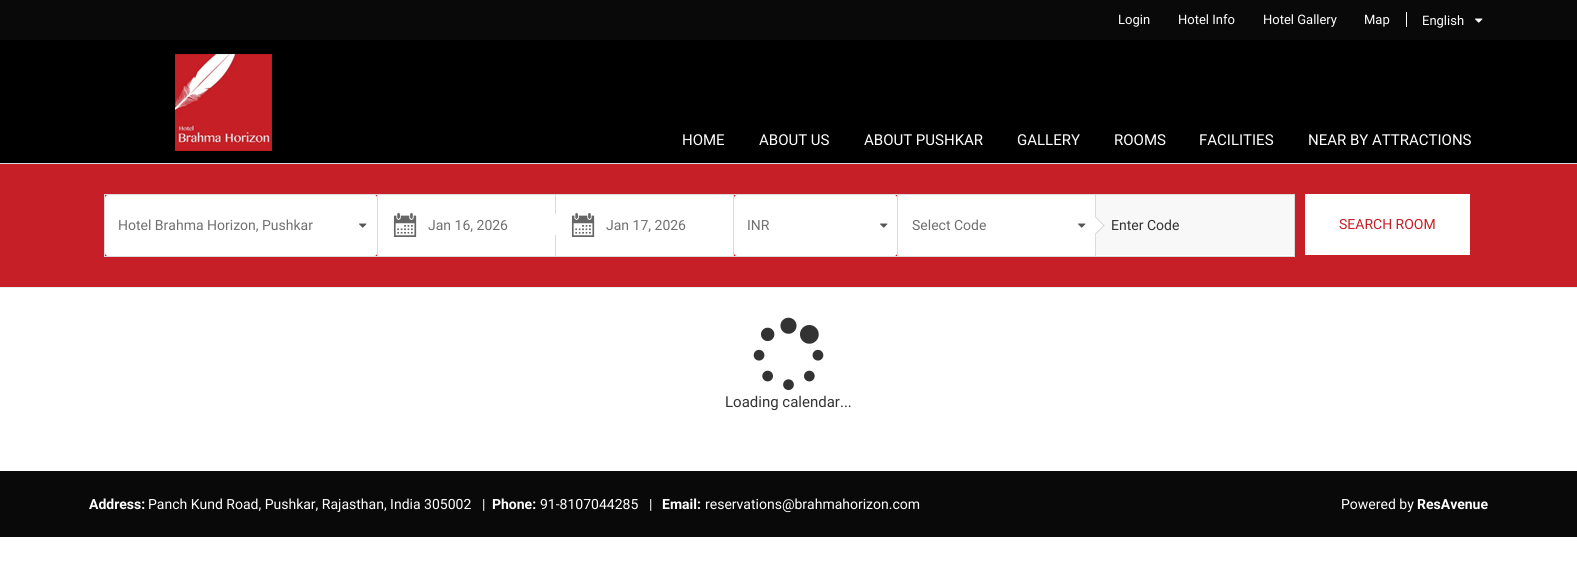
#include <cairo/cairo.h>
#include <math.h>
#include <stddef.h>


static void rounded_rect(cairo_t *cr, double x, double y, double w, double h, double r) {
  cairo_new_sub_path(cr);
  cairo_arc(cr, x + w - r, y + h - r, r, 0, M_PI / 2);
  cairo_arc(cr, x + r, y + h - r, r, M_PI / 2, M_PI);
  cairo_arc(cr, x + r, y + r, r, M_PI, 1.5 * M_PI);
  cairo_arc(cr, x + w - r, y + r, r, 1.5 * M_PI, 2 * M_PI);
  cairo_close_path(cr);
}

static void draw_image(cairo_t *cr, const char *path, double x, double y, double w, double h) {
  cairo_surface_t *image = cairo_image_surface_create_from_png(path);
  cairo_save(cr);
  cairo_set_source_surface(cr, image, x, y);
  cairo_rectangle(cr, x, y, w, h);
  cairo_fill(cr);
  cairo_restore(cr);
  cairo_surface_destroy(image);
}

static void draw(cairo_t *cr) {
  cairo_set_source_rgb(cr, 1, 1, 1);
  cairo_paint(cr);
  cairo_set_source_rgb(cr, 239 / 255.0, 239 / 255.0, 239 / 255.0);
  cairo_rectangle(cr, 0, 287, 1577, 1);
  cairo_fill(cr);
  cairo_set_source_rgb(cr, 9 / 255.0, 9 / 255.0, 9 / 255.0);
  cairo_rectangle(cr, 0, 0, 1577, 40);
  cairo_fill(cr);
  cairo_set_source_rgb(cr, 1, 1, 1);
  cairo_rectangle(cr, 1406, 12, 1, 15);
  cairo_fill(cr);
  draw_image(cr, "images/1.png", 1475, 18, 8, 5);
  cairo_set_source_rgb(cr, 0, 0, 0);
  cairo_rectangle(cr, 0, 40, 1577, 123);
  cairo_fill(cr);
  cairo_set_source_rgb(cr, 219 / 255.0, 219 / 255.0, 219 / 255.0);
  cairo_rectangle(cr, 0, 163, 1577, 1);
  cairo_fill(cr);
  draw_image(cr, "images/2.png", 175, 54, 97, 97);
  cairo_set_source_rgb(cr, 198 / 255.0, 31 / 255.0, 39 / 255.0);
  cairo_rectangle(cr, 0, 164, 1577, 123);
  cairo_fill(cr);
  cairo_rectangle(cr, 104.5, 194.5, 273, 62);
  cairo_set_source_rgb(cr, 219 / 255.0, 219 / 255.0, 219 / 255.0);
  cairo_set_line_width(cr, 1);
  cairo_stroke(cr);
  cairo_set_source_rgb(cr, 1, 1, 1);
  rounded_rect(cr, 105, 195, 272, 61, 3);
  cairo_fill(cr);
  cairo_new_path(cr);
  cairo_move_to(cr, 353, 195);
  cairo_line_to(cr, 374, 195);
  cairo_curve_to(cr, 375.5, 195, 377, 196.5, 377, 198);
  cairo_line_to(cr, 377, 253);
  cairo_curve_to(cr, 377, 254.5, 375.5, 256, 374, 256);
  cairo_line_to(cr, 353, 256);
  cairo_close_path(cr);
  cairo_fill(cr);
  draw_image(cr, "images/3.png", 359, 223, 8, 5);
  cairo_rectangle(cr, 378, 195, 355, 61);
  cairo_fill(cr);
  cairo_set_source_rgb(cr, 219 / 255.0, 219 / 255.0, 219 / 255.0);
  cairo_rectangle(cr, 378, 194, 917, 1);
  cairo_fill(cr);
  cairo_rectangle(cr, 555, 194, 1, 63);
  cairo_fill(cr);
  cairo_rectangle(cr, 378, 256, 178, 1);
  cairo_fill(cr);
  draw_image(cr, "images/4.png", 393, 213, 24, 24);
  cairo_set_source_rgb(cr, 1, 1, 1);
  cairo_rectangle(cr, 555, 214, 1, 21);
  cairo_fill(cr);
  cairo_set_source_rgb(cr, 219 / 255.0, 219 / 255.0, 219 / 255.0);
  cairo_rectangle(cr, 733, 194, 1, 63);
  cairo_fill(cr);
  cairo_rectangle(cr, 556, 256, 178, 1);
  cairo_fill(cr);
  draw_image(cr, "images/5.png", 571, 213, 24, 24);
  cairo_rectangle(cr, 897, 194, 1, 63);
  cairo_fill(cr);
  cairo_rectangle(cr, 734, 256, 164, 1);
  cairo_fill(cr);
  cairo_set_source_rgb(cr, 1, 1, 1);
  rounded_rect(cr, 734, 195, 163, 61, 3);
  cairo_fill(cr);
  cairo_new_path(cr);
  cairo_move_to(cr, 874, 195);
  cairo_line_to(cr, 894, 195);
  cairo_curve_to(cr, 895.5, 195, 897, 196.5, 897, 198);
  cairo_line_to(cr, 897, 253);
  cairo_curve_to(cr, 897, 254.5, 895.5, 256, 894, 256);
  cairo_line_to(cr, 874, 256);
  cairo_close_path(cr);
  cairo_fill(cr);
  draw_image(cr, "images/3.png", 880, 223, 8, 5);
  cairo_rectangle(cr, 1096, 255, 198, 1);
  cairo_fill(cr);
  cairo_set_source_rgb(cr, 219 / 255.0, 219 / 255.0, 219 / 255.0);
  cairo_rectangle(cr, 1294, 194, 1, 63);
  cairo_fill(cr);
  cairo_rectangle(cr, 898, 256, 397, 1);
  cairo_fill(cr);
  cairo_set_source_rgb(cr, 248 / 255.0, 248 / 255.0, 248 / 255.0);
  cairo_rectangle(cr, 898, 195, 197, 61);
  cairo_fill(cr);
  cairo_set_source_rgb(cr, 219 / 255.0, 219 / 255.0, 219 / 255.0);
  cairo_rectangle(cr, 1095, 195, 1, 61);
  cairo_fill(cr);
  cairo_set_source_rgb(cr, 1, 1, 1);
  rounded_rect(cr, 898, 195, 197, 61, 3);
  cairo_fill(cr);
  draw_image(cr, "images/3.png", 1078, 223, 8, 5);
  cairo_set_source_rgb(cr, 248 / 255.0, 248 / 255.0, 248 / 255.0);
  cairo_rectangle(cr, 1096, 195, 198, 60);
  cairo_fill(cr);
  cairo_set_source_rgb(cr, 1, 1, 1);
  cairo_new_path(cr);
  cairo_move_to(cr, 1096, 234);
  cairo_line_to(cr, 1087.5, 225.5);
  cairo_line_to(cr, 1096, 217);
  cairo_line_to(cr, 1104.5, 225.5);
  cairo_close_path(cr);
  cairo_fill(cr);
  cairo_set_source_rgb(cr, 196 / 255.0, 196 / 255.0, 196 / 255.0);
  cairo_new_path(cr);
  cairo_move_to(cr, 1104, 226);
  cairo_line_to(cr, 1095.5, 217.5);
  cairo_line_to(cr, 1096, 217);
  cairo_line_to(cr, 1104.5, 225.5);
  cairo_close_path(cr);
  cairo_fill(cr);
  cairo_new_path(cr);
  cairo_move_to(cr, 1096, 234);
  cairo_line_to(cr, 1095.5, 233.5);
  cairo_line_to(cr, 1104, 225);
  cairo_line_to(cr, 1104.5, 225.5);
  cairo_close_path(cr);
  cairo_fill(cr);
  cairo_set_source_rgb(cr, 1, 1, 1);
  cairo_rectangle(cr, 1305, 194, 165, 61);
  cairo_fill(cr);
  draw_image(cr, "images/6.png", 753, 317, 71, 73);
  cairo_set_source_rgb(cr, 9 / 255.0, 9 / 255.0, 9 / 255.0);
  cairo_rectangle(cr, 0, 471, 1577, 66);
  cairo_fill(cr);
  cairo_select_font_face(cr, "Roboto", CAIRO_FONT_SLANT_NORMAL, CAIRO_FONT_WEIGHT_NORMAL);
  cairo_set_font_size(cr, 13);
  cairo_set_source_rgb(cr, 1, 1, 1);
  cairo_move_to(cr, 1118, 24);
  cairo_show_text(cr, "Login");
  cairo_move_to(cr, 1178, 24);
  cairo_show_text(cr, "Hotel Info");
  cairo_move_to(cr, 1263, 24);
  cairo_show_text(cr, "Hotel Gallery");
  cairo_move_to(cr, 1364, 24);
  cairo_show_text(cr, "Map");
  cairo_move_to(cr, 1422, 25);
  cairo_show_text(cr, "English");
  cairo_set_font_size(cr, 15);
  cairo_move_to(cr, 682, 145);
  cairo_show_text(cr, "HOME");
  cairo_move_to(cr, 759, 145);
  cairo_show_text(cr, "ABOUT US");
  cairo_move_to(cr, 864, 145);
  cairo_show_text(cr, "ABOUT PUSHKAR");
  cairo_move_to(cr, 1017, 145);
  cairo_show_text(cr, "GALLERY");
  cairo_move_to(cr, 1114, 145);
  cairo_show_text(cr, "ROOMS");
  cairo_move_to(cr, 1199, 145);
  cairo_show_text(cr, "FACILITIES");
  cairo_move_to(cr, 1308, 145);
  cairo_show_text(cr, "NEAR BY ATTRACTIONS");
  cairo_set_font_size(cr, 14);
  cairo_set_source_rgb(cr, 112 / 255.0, 112 / 255.0, 112 / 255.0);
  cairo_move_to(cr, 118, 230);
  cairo_show_text(cr, "Hotel Brahma Horizon, Pushkar");
  cairo_move_to(cr, 428, 230);
  cairo_show_text(cr, "Jan 16, 2026");
  cairo_move_to(cr, 606, 230);
  cairo_show_text(cr, "Jan 17, 2026");
  cairo_move_to(cr, 747, 230);
  cairo_show_text(cr, "INR");
  cairo_move_to(cr, 912, 230);
  cairo_show_text(cr, "Select Code");
  cairo_set_source_rgb(cr, 51 / 255.0, 51 / 255.0, 51 / 255.0);
  cairo_move_to(cr, 1111, 230);
  cairo_show_text(cr, "Enter Code");
  cairo_set_source_rgb(cr, 198 / 255.0, 31 / 255.0, 39 / 255.0);
  cairo_move_to(cr, 1339, 229);
  cairo_show_text(cr, "SEARCH ROOM");
  cairo_set_font_size(cr, 15);
  cairo_set_source_rgb(cr, 51 / 255.0, 51 / 255.0, 51 / 255.0);
  cairo_move_to(cr, 725, 407);
  cairo_show_text(cr, "Loading calendar...");
  cairo_select_font_face(cr, "Roboto", CAIRO_FONT_SLANT_NORMAL, CAIRO_FONT_WEIGHT_BOLD);
  cairo_set_font_size(cr, 14);
  cairo_set_source_rgb(cr, 1, 1, 1);
  cairo_move_to(cr, 89, 509);
  cairo_show_text(cr, "Address:");
  cairo_select_font_face(cr, "Roboto", CAIRO_FONT_SLANT_NORMAL, CAIRO_FONT_WEIGHT_NORMAL);
  cairo_move_to(cr, 148, 509);
  cairo_show_text(cr, "Panch Kund Road, Pushkar, Rajasthan, India 305002");
  cairo_move_to(cr, 482, 509);
  cairo_show_text(cr, "|");
  cairo_select_font_face(cr, "Roboto", CAIRO_FONT_SLANT_NORMAL, CAIRO_FONT_WEIGHT_BOLD);
  cairo_move_to(cr, 492, 509);
  cairo_show_text(cr, "Phone:");
  cairo_select_font_face(cr, "Roboto", CAIRO_FONT_SLANT_NORMAL, CAIRO_FONT_WEIGHT_NORMAL);
  cairo_move_to(cr, 540, 509);
  cairo_show_text(cr, "91-8107044285");
  cairo_move_to(cr, 649, 509);
  cairo_show_text(cr, "|");
  cairo_select_font_face(cr, "Roboto", CAIRO_FONT_SLANT_NORMAL, CAIRO_FONT_WEIGHT_BOLD);
  cairo_move_to(cr, 662, 509);
  cairo_show_text(cr, "Email:");
  cairo_select_font_face(cr, "Roboto", CAIRO_FONT_SLANT_NORMAL, CAIRO_FONT_WEIGHT_NORMAL);
  cairo_move_to(cr, 705, 509);
  cairo_show_text(cr, "reservations@brahmahorizon.com");
  cairo_move_to(cr, 1341, 509);
  cairo_show_text(cr, "Powered by");
  cairo_select_font_face(cr, "Roboto", CAIRO_FONT_SLANT_NORMAL, CAIRO_FONT_WEIGHT_BOLD);
  cairo_move_to(cr, 1417, 509);
  cairo_show_text(cr, "ResAvenue");
}

int main(void) {
  cairo_surface_t *surface = cairo_image_surface_create(CAIRO_FORMAT_RGB24, 1577, 572);
  cairo_t *cr = cairo_create(surface);
  cairo_font_options_t *options = cairo_font_options_create();
  cairo_font_options_set_hint_metrics(options, CAIRO_HINT_METRICS_OFF);
  cairo_font_options_set_hint_style(options, CAIRO_HINT_STYLE_NONE);
  cairo_set_font_options(cr, options);
  cairo_set_miter_limit(cr, 4);
  draw(cr);
  cairo_surface_write_to_png(surface, "out.png");
  cairo_font_options_destroy(options);
  cairo_destroy(cr);
  cairo_surface_destroy(surface);
  return 0;
}
